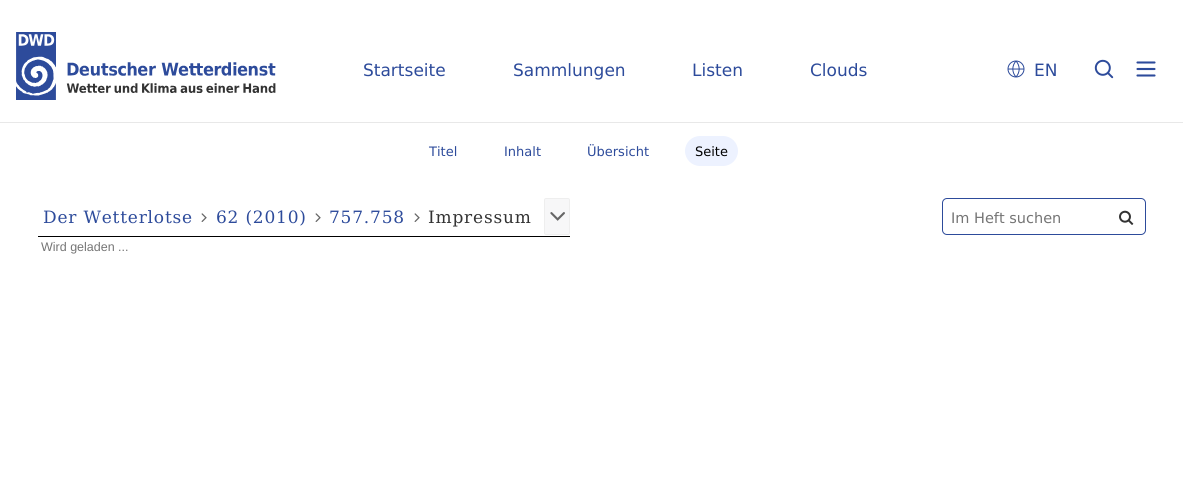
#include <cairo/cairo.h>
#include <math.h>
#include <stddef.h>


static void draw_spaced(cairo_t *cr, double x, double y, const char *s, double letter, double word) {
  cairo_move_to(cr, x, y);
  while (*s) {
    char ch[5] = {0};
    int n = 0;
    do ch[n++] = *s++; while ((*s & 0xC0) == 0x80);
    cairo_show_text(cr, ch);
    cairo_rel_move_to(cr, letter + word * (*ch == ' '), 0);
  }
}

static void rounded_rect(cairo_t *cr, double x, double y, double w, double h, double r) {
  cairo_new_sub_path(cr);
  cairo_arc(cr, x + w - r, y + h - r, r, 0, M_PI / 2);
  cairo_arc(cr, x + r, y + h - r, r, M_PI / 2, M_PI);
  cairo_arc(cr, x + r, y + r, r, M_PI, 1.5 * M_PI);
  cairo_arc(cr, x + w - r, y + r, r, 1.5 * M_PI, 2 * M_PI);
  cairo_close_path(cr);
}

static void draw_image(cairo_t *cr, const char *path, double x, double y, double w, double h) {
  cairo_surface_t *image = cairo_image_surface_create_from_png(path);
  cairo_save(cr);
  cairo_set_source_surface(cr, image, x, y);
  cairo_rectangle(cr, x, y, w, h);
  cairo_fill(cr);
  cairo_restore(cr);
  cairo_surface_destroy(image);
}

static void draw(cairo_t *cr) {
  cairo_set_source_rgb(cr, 1, 1, 1);
  cairo_paint(cr);
  cairo_set_source_rgb(cr, 232 / 255.0, 232 / 255.0, 232 / 255.0);
  cairo_rectangle(cr, 0, 122, 1183, 1);
  cairo_fill(cr);
  draw_image(cr, "images/1.png", 16, 32, 260, 68);
  draw_image(cr, "images/2.png", 1007, 60, 18, 18);
  draw_image(cr, "images/3.png", 1094, 59, 20, 20);
  cairo_new_path(cr);
  cairo_move_to(cr, 1137.5, 69);
  cairo_line_to(cr, 1154.5, 69);
  cairo_move_to(cr, 1137.5, 62.5);
  cairo_line_to(cr, 1154.5, 62.5);
  cairo_move_to(cr, 1137.5, 75.5);
  cairo_line_to(cr, 1154.5, 75.5);
  cairo_set_source_rgb(cr, 45 / 255.0, 75 / 255.0, 155 / 255.0);
  cairo_set_line_width(cr, 2.1);
  cairo_set_line_cap(cr, CAIRO_LINE_CAP_ROUND);
  cairo_set_line_join(cr, CAIRO_LINE_JOIN_ROUND);
  cairo_stroke(cr);
  cairo_set_source_rgb(cr, 237 / 255.0, 242 / 255.0, 1);
  rounded_rect(cr, 685, 136, 53, 30, 15);
  cairo_fill(cr);
  cairo_set_source_rgb(cr, 0, 0, 0);
  cairo_rectangle(cr, 38, 236, 532, 1);
  cairo_fill(cr);
  draw_image(cr, "images/4.png", 201, 213, 6, 9);
  draw_image(cr, "images/4.png", 315, 213, 6, 9);
  draw_image(cr, "images/4.png", 414, 213, 6, 9);
  cairo_set_source_rgb(cr, 247 / 255.0, 247 / 255.0, 248 / 255.0);
  rounded_rect(cr, 544.5, 198.5, 25, 36, 1.5);
  cairo_fill_preserve(cr);
  cairo_set_source_rgb(cr, 238 / 255.0, 238 / 255.0, 238 / 255.0);
  cairo_set_line_width(cr, 1);
  cairo_set_line_cap(cr, CAIRO_LINE_CAP_BUTT);
  cairo_set_line_join(cr, CAIRO_LINE_JOIN_MITER);
  cairo_stroke(cr);
  draw_image(cr, "images/5.png", 550, 212, 15, 9);
  rounded_rect(cr, 942.5, 198.5, 203, 36, 4.5);
  cairo_set_source_rgb(cr, 45 / 255.0, 75 / 255.0, 155 / 255.0);
  cairo_stroke(cr);
  draw_image(cr, "images/6.png", 1119, 210, 15, 15);
  cairo_select_font_face(cr, "DejaVu Sans", CAIRO_FONT_SLANT_NORMAL, CAIRO_FONT_WEIGHT_NORMAL);
  cairo_set_font_size(cr, 17);
  cairo_move_to(cr, 363, 76);
  cairo_show_text(cr, "Startseite");
  cairo_move_to(cr, 513, 76);
  cairo_show_text(cr, "Sammlungen");
  cairo_move_to(cr, 692, 76);
  cairo_show_text(cr, "Listen");
  cairo_move_to(cr, 810, 76);
  cairo_show_text(cr, "Clouds");
  cairo_move_to(cr, 1034, 76);
  cairo_show_text(cr, "EN");
  cairo_set_font_size(cr, 13);
  cairo_move_to(cr, 429, 156);
  cairo_show_text(cr, "Titel");
  cairo_move_to(cr, 504, 156);
  cairo_show_text(cr, "Inhalt");
  cairo_move_to(cr, 587, 156);
  cairo_show_text(cr, "Übersicht");
  cairo_set_source_rgb(cr, 0, 0, 0);
  cairo_move_to(cr, 695, 156);
  cairo_show_text(cr, "Seite");
  cairo_select_font_face(cr, "DejaVu Serif", CAIRO_FONT_SLANT_NORMAL, CAIRO_FONT_WEIGHT_NORMAL);
  cairo_set_font_size(cr, 17);
  cairo_set_source_rgb(cr, 45 / 255.0, 75 / 255.0, 155 / 255.0);
  draw_spaced(cr, 43, 223, "Der Wetterlotse", 0.8, 0);
  draw_spaced(cr, 216, 223, "62 (2010)", 0.8, 0);
  draw_spaced(cr, 329, 223, "757.758", 0.8, 0);
  cairo_set_source_rgb(cr, 51 / 255.0, 51 / 255.0, 51 / 255.0);
  draw_spaced(cr, 428, 223, "Impressum", 0.8, 0);
  cairo_select_font_face(cr, "DejaVu Sans", CAIRO_FONT_SLANT_NORMAL, CAIRO_FONT_WEIGHT_NORMAL);
  cairo_set_font_size(cr, 14.5);
  cairo_set_source_rgb(cr, 117 / 255.0, 117 / 255.0, 117 / 255.0);
  cairo_move_to(cr, 951, 223);
  cairo_show_text(cr, "Im Heft suchen");
  cairo_select_font_face(cr, "Liberation Sans", CAIRO_FONT_SLANT_NORMAL, CAIRO_FONT_WEIGHT_NORMAL);
  cairo_set_font_size(cr, 12.5);
  cairo_move_to(cr, 41, 251);
  cairo_show_text(cr, "Wird geladen ...");
}

int main(void) {
  cairo_surface_t *surface = cairo_image_surface_create(CAIRO_FORMAT_RGB24, 1183, 500);
  cairo_t *cr = cairo_create(surface);
  cairo_font_options_t *options = cairo_font_options_create();
  cairo_font_options_set_hint_metrics(options, CAIRO_HINT_METRICS_OFF);
  cairo_font_options_set_hint_style(options, CAIRO_HINT_STYLE_NONE);
  cairo_set_font_options(cr, options);
  cairo_set_miter_limit(cr, 4);
  draw(cr);
  cairo_surface_write_to_png(surface, "out.png");
  cairo_font_options_destroy(options);
  cairo_destroy(cr);
  cairo_surface_destroy(surface);
  return 0;
}
